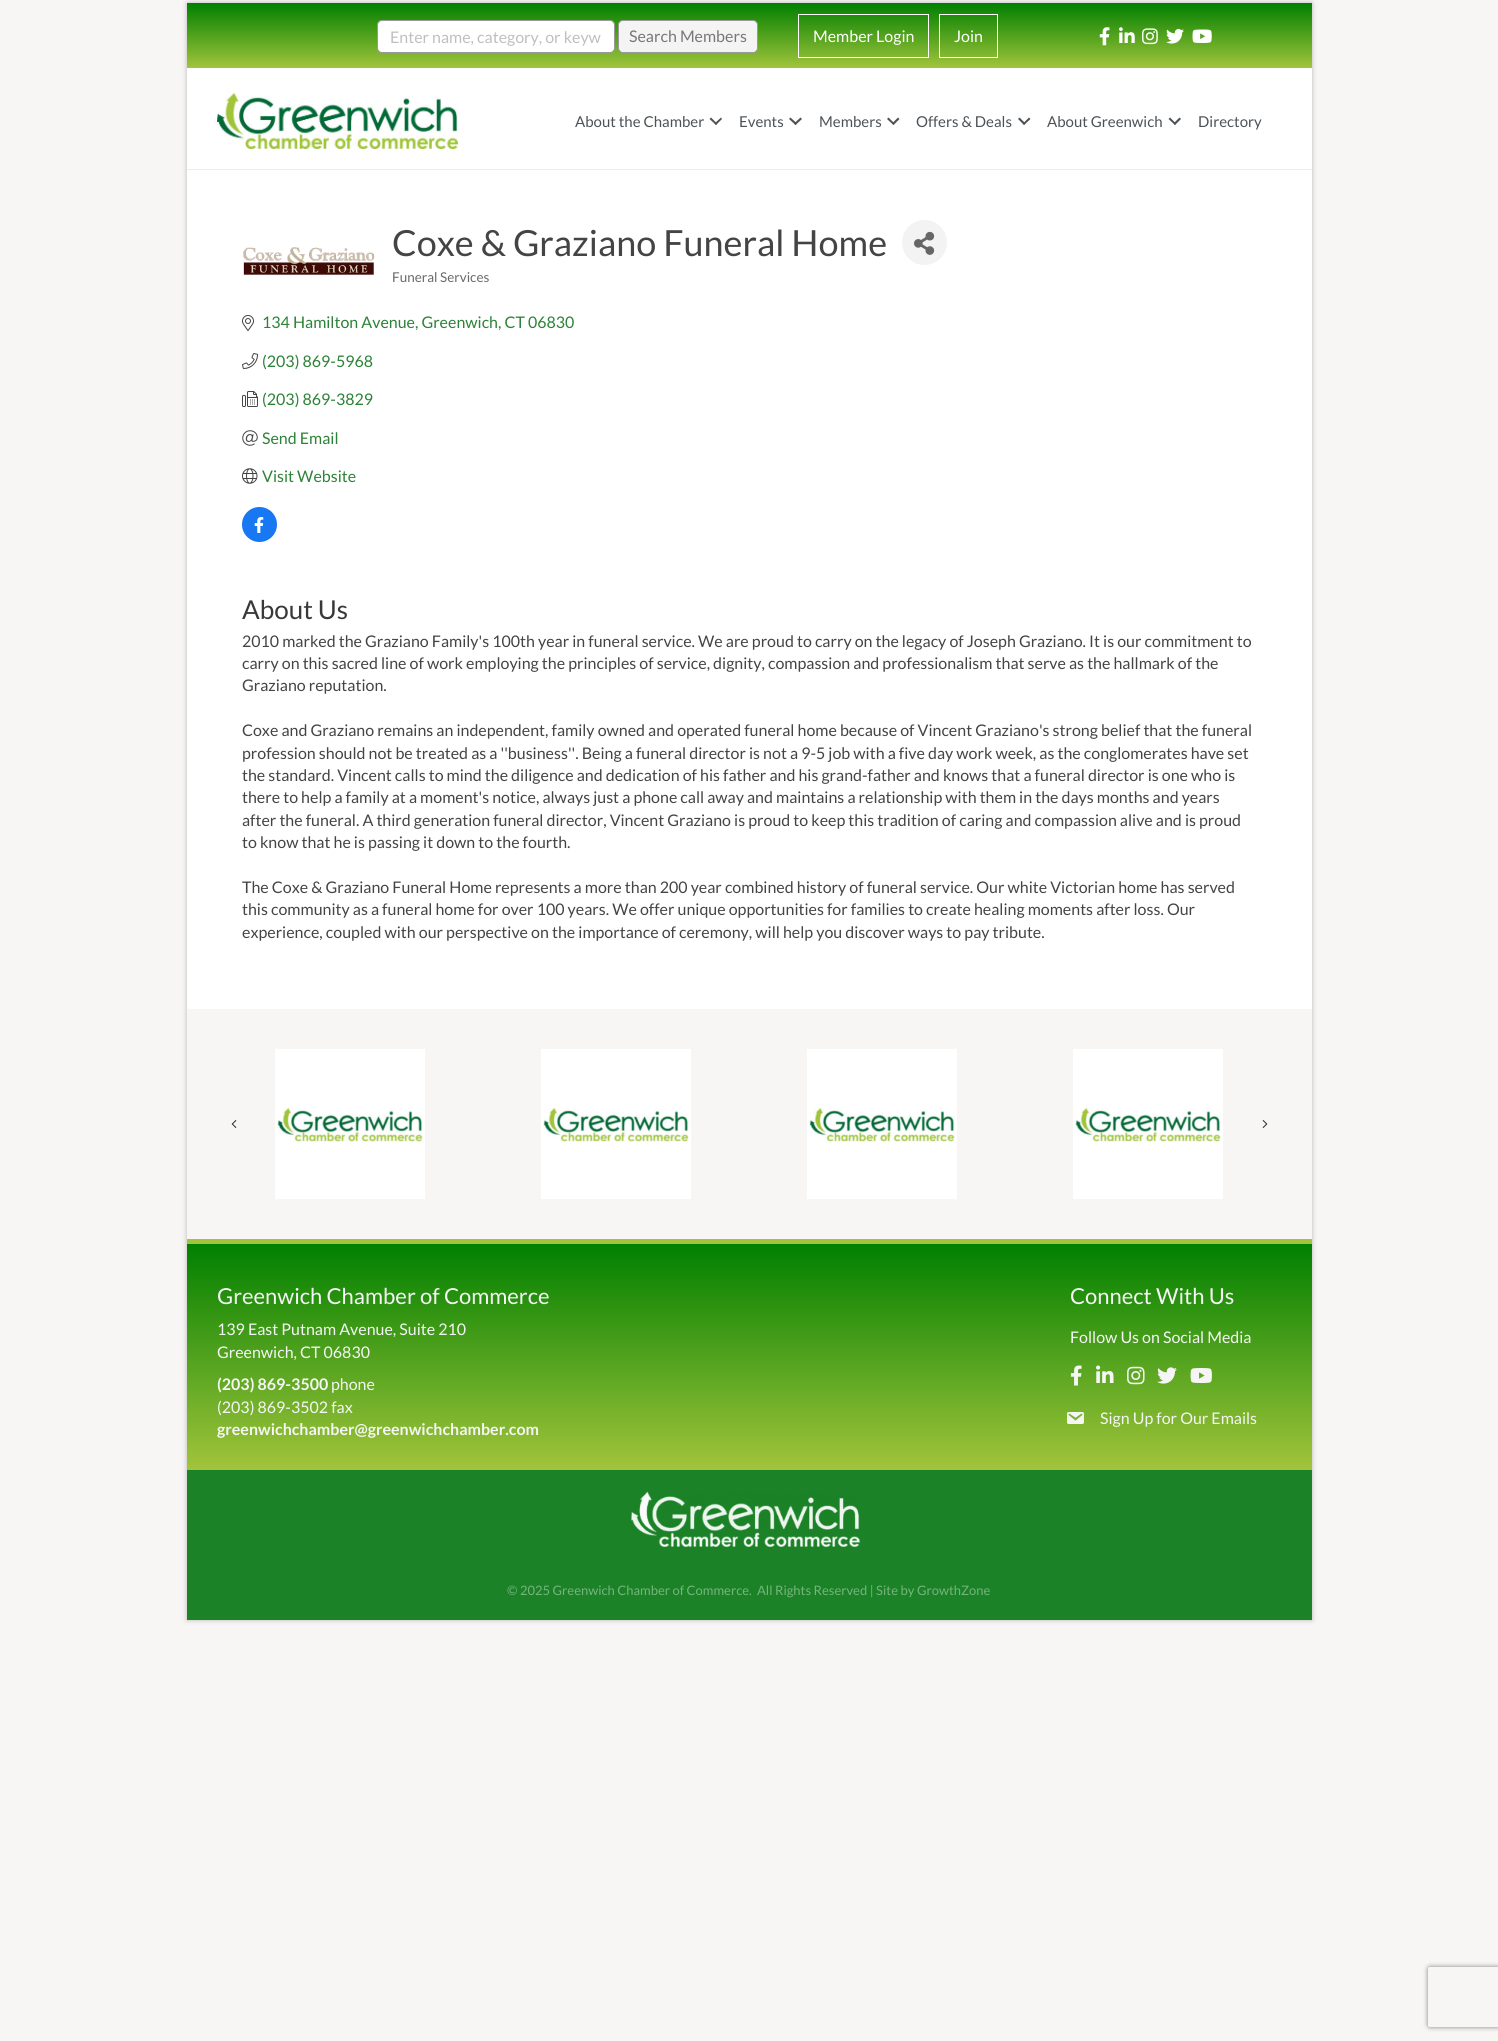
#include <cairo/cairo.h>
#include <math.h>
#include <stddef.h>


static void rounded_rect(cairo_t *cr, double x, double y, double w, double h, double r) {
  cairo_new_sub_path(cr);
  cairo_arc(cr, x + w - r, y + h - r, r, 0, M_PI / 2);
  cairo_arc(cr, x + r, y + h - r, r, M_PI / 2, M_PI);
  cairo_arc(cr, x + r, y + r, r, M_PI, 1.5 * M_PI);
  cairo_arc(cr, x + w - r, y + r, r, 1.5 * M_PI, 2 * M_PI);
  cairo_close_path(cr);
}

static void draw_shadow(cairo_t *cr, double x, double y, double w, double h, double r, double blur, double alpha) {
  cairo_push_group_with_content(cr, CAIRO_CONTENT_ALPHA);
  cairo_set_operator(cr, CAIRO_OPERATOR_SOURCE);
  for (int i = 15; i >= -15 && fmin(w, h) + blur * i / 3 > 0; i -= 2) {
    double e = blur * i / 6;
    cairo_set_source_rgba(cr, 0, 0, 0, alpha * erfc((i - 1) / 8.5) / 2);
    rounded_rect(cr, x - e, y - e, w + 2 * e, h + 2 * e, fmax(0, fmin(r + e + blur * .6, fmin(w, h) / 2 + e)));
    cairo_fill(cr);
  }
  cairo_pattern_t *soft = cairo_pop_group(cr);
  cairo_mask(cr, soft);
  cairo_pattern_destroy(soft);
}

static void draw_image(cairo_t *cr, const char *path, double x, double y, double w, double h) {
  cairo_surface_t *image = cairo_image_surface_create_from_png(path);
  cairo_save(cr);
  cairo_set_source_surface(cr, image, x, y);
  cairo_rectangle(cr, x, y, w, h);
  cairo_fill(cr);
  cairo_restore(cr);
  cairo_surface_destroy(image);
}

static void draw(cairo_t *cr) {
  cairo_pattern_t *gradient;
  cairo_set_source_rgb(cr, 247 / 255.0, 246 / 255.0, 244 / 255.0);
  cairo_paint(cr);
  cairo_save(cr);
  cairo_set_fill_rule(cr, CAIRO_FILL_RULE_EVEN_ODD);
  cairo_new_path(cr);
  cairo_move_to(cr, 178, 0);
  cairo_line_to(cr, 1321, 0);
  cairo_line_to(cr, 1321, 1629);
  cairo_line_to(cr, 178, 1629);
  cairo_close_path(cr);
  cairo_move_to(cr, 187, 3);
  cairo_line_to(cr, 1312, 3);
  cairo_line_to(cr, 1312, 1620);
  cairo_line_to(cr, 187, 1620);
  cairo_close_path(cr);
  cairo_clip(cr);
  cairo_set_source_rgb(cr, 183 / 255.0, 182 / 255.0, 181 / 255.0);
  draw_shadow(cr, 187, 3, 1125, 1617, 0, 2.5, 1);
  cairo_restore(cr);
  gradient = cairo_pattern_create_linear(750, 3, 750, 68);
  cairo_pattern_add_color_stop_rgba(gradient, 0, 0, 128 / 255.0, 0, 1);
  cairo_pattern_add_color_stop_rgba(gradient, 1, 162 / 255.0, 196 / 255.0, 59 / 255.0, 1);
  cairo_set_source(cr, gradient);
  cairo_pattern_destroy(gradient);
  cairo_rectangle(cr, 187, 3, 1125, 65);
  cairo_fill(cr);
  cairo_set_source_rgb(cr, 1, 1, 1);
  rounded_rect(cr, 377.5, 20.5, 237, 32, 4.5);
  cairo_fill_preserve(cr);
  cairo_set_source_rgb(cr, 153 / 255.0, 153 / 255.0, 153 / 255.0);
  cairo_set_line_width(cr, 1);
  cairo_stroke(cr);
  cairo_set_source_rgb(cr, 244 / 255.0, 244 / 255.0, 244 / 255.0);
  rounded_rect(cr, 618.5, 20.5, 139, 32, 4.5);
  cairo_fill_preserve(cr);
  cairo_set_source_rgb(cr, 153 / 255.0, 153 / 255.0, 153 / 255.0);
  cairo_stroke(cr);
  cairo_rectangle(cr, 798.5, 14.5, 130, 43);
  cairo_set_source_rgb(cr, 1, 1, 1);
  cairo_stroke(cr);
  cairo_rectangle(cr, 939.5, 14.5, 58, 43);
  cairo_stroke(cr);
  draw_image(cr, "images/1.png", 1099, 27, 11, 19);
  draw_image(cr, "images/2.png", 1119, 27, 16, 16);
  draw_image(cr, "images/3.png", 1142, 28, 16, 17);
  draw_image(cr, "images/4.png", 1166, 28, 18, 16);
  draw_image(cr, "images/5.png", 1192, 29, 20, 14);
  cairo_rectangle(cr, 187, 68, 1125, 101);
  cairo_fill(cr);
  cairo_set_source_rgb(cr, 236 / 255.0, 238 / 255.0, 235 / 255.0);
  cairo_rectangle(cr, 187, 169, 1125, 1);
  cairo_fill(cr);
  draw_image(cr, "images/6.png", 217, 93, 241, 56);
  cairo_set_source_rgb(cr, 76 / 255.0, 82 / 255.0, 86 / 255.0);
  cairo_new_path(cr);
  cairo_move_to(cr, 721, 117.5);
  cairo_line_to(cr, 722, 119);
  cairo_line_to(cr, 716, 125);
  cairo_line_to(cr, 714.5, 123.5);
  cairo_close_path(cr);
  cairo_fill(cr);
  cairo_new_path(cr);
  cairo_move_to(cr, 711, 117.5);
  cairo_line_to(cr, 717, 123.5);
  cairo_line_to(cr, 716, 125);
  cairo_line_to(cr, 709.5, 119);
  cairo_close_path(cr);
  cairo_fill(cr);
  cairo_new_path(cr);
  cairo_move_to(cr, 800.5, 117.5);
  cairo_line_to(cr, 802, 119);
  cairo_line_to(cr, 795.5, 125);
  cairo_line_to(cr, 794, 123.5);
  cairo_close_path(cr);
  cairo_fill(cr);
  cairo_new_path(cr);
  cairo_move_to(cr, 790.5, 117.5);
  cairo_line_to(cr, 797, 123.5);
  cairo_line_to(cr, 795.5, 125);
  cairo_line_to(cr, 789, 119);
  cairo_close_path(cr);
  cairo_fill(cr);
  cairo_new_path(cr);
  cairo_move_to(cr, 898, 117.5);
  cairo_line_to(cr, 899.5, 119);
  cairo_line_to(cr, 893.5, 125);
  cairo_line_to(cr, 892, 123.5);
  cairo_close_path(cr);
  cairo_fill(cr);
  cairo_new_path(cr);
  cairo_move_to(cr, 888.5, 117.5);
  cairo_line_to(cr, 894.5, 123.5);
  cairo_line_to(cr, 893.5, 125);
  cairo_line_to(cr, 887, 119);
  cairo_close_path(cr);
  cairo_fill(cr);
  cairo_new_path(cr);
  cairo_move_to(cr, 1029, 117.5);
  cairo_line_to(cr, 1030.5, 119);
  cairo_line_to(cr, 1024, 125);
  cairo_line_to(cr, 1023, 123.5);
  cairo_close_path(cr);
  cairo_fill(cr);
  cairo_new_path(cr);
  cairo_move_to(cr, 1019.5, 117.5);
  cairo_line_to(cr, 1025.5, 123.5);
  cairo_line_to(cr, 1024, 125);
  cairo_line_to(cr, 1018, 119);
  cairo_close_path(cr);
  cairo_fill(cr);
  cairo_new_path(cr);
  cairo_move_to(cr, 1179.5, 117.5);
  cairo_line_to(cr, 1181, 119);
  cairo_line_to(cr, 1175, 125);
  cairo_line_to(cr, 1173.5, 123.5);
  cairo_close_path(cr);
  cairo_fill(cr);
  cairo_new_path(cr);
  cairo_move_to(cr, 1170, 117.5);
  cairo_line_to(cr, 1176, 123.5);
  cairo_line_to(cr, 1175, 125);
  cairo_line_to(cr, 1168.5, 119);
  cairo_close_path(cr);
  cairo_fill(cr);
  cairo_set_source_rgb(cr, 1, 1, 1);
  cairo_rectangle(cr, 187, 170, 1125, 839);
  cairo_fill(cr);
  draw_image(cr, "images/7.png", 243, 247, 132, 28);
  cairo_set_source_rgb(cr, 243 / 255.0, 243 / 255.0, 243 / 255.0);
  cairo_arc(cr, 924.5, 242.5, 22.5, 0, 2 * M_PI);
  cairo_fill(cr);
  draw_image(cr, "images/8.png", 914, 231, 21, 24);
  draw_image(cr, "images/9.png", 242, 315, 12, 16);
  draw_image(cr, "images/10.png", 242, 353, 16, 16);
  draw_image(cr, "images/11.png", 242, 391, 16, 16);
  draw_image(cr, "images/12.png", 242, 430, 16, 16);
  draw_image(cr, "images/13.png", 242, 468, 16, 16);
  cairo_set_source_rgb(cr, 24 / 255.0, 119 / 255.0, 242 / 255.0);
  cairo_arc(cr, 259.5, 524.5, 17.5, 0, 2 * M_PI);
  cairo_fill(cr);
  draw_image(cr, "images/14.png", 254, 517, 10, 16);
  draw_image(cr, "images/15.png", 231, 1120, 6, 8);
  draw_image(cr, "images/16.png", 275, 1049, 150, 150);
  draw_image(cr, "images/16.png", 541, 1049, 150, 150);
  draw_image(cr, "images/16.png", 807, 1049, 150, 150);
  draw_image(cr, "images/16.png", 1073, 1049, 150, 150);
  draw_image(cr, "images/17.png", 1262, 1120, 6, 8);
  gradient = cairo_pattern_create_linear(750, 1244, 750, 1470);
  cairo_pattern_add_color_stop_rgba(gradient, 0, 0, 128 / 255.0, 0, 1);
  cairo_pattern_add_color_stop_rgba(gradient, 1, 162 / 255.0, 196 / 255.0, 59 / 255.0, 1);
  cairo_set_source(cr, gradient);
  cairo_pattern_destroy(gradient);
  cairo_rectangle(cr, 187, 1244, 1125, 226);
  cairo_fill(cr);
  cairo_set_source_rgb(cr, 162 / 255.0, 196 / 255.0, 59 / 255.0);
  cairo_rectangle(cr, 187, 1239, 1125, 5);
  cairo_fill(cr);
  draw_image(cr, "images/18.png", 1070, 1365, 12, 21);
  draw_image(cr, "images/19.png", 1096, 1365, 18, 18);
  draw_image(cr, "images/20.png", 1127, 1366, 18, 19);
  draw_image(cr, "images/21.png", 1157, 1367, 20, 17);
  draw_image(cr, "images/22.png", 1190, 1368, 22, 15);
  draw_image(cr, "images/23.png", 1067, 1412, 17, 12);
  cairo_set_source_rgb(cr, 27 / 255.0, 130 / 255.0, 39 / 255.0);
  cairo_rectangle(cr, 187, 1470, 1125, 150);
  cairo_fill(cr);
  draw_image(cr, "images/24.png", 631, 1491, 230, 56);
  cairo_save(cr);
  cairo_set_fill_rule(cr, CAIRO_FILL_RULE_EVEN_ODD);
  cairo_new_path(cr);
  cairo_move_to(cr, 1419, 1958);
  cairo_line_to(cr, 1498, 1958);
  cairo_line_to(cr, 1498, 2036);
  cairo_line_to(cr, 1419, 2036);
  cairo_close_path(cr);
  cairo_move_to(cr, 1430, 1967);
  cairo_line_to(cr, 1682, 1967);
  cairo_curve_to(cr, 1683, 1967, 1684, 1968, 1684, 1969);
  cairo_line_to(cr, 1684, 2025);
  cairo_curve_to(cr, 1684, 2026, 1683, 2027, 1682, 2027);
  cairo_line_to(cr, 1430, 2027);
  cairo_curve_to(cr, 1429, 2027, 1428, 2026, 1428, 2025);
  cairo_line_to(cr, 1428, 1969);
  cairo_curve_to(cr, 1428, 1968, 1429, 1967, 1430, 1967);
  cairo_close_path(cr);
  cairo_clip(cr);
  cairo_set_source_rgb(cr, 128 / 255.0, 128 / 255.0, 128 / 255.0);
  draw_shadow(cr, 1428, 1967, 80, 60, 2, 2.5, 1);
  cairo_restore(cr);
  cairo_select_font_face(cr, "Lato", CAIRO_FONT_SLANT_NORMAL, CAIRO_FONT_WEIGHT_NORMAL);
  cairo_set_font_size(cr, 16);
  cairo_set_source_rgb(cr, 191 / 255.0, 191 / 255.0, 191 / 255.0);
  cairo_move_to(cr, 390, 43);
  cairo_show_text(cr, "Enter name, category, or keyw");
  cairo_set_source_rgb(cr, 119 / 255.0, 119 / 255.0, 119 / 255.0);
  cairo_move_to(cr, 629, 42);
  cairo_show_text(cr, "Search Members");
  cairo_set_source_rgb(cr, 1, 1, 1);
  cairo_move_to(cr, 813, 42);
  cairo_show_text(cr, "Member Login");
  cairo_move_to(cr, 954, 42);
  cairo_show_text(cr, "Join");
  cairo_set_font_size(cr, 15);
  cairo_set_source_rgb(cr, 76 / 255.0, 82 / 255.0, 86 / 255.0);
  cairo_move_to(cr, 575, 127);
  cairo_show_text(cr, "About the Chamber");
  cairo_move_to(cr, 739, 127);
  cairo_show_text(cr, "Events");
  cairo_move_to(cr, 819, 127);
  cairo_show_text(cr, "Members");
  cairo_move_to(cr, 916, 127);
  cairo_show_text(cr, "Offers & Deals");
  cairo_move_to(cr, 1047, 127);
  cairo_show_text(cr, "About Greenwich");
  cairo_move_to(cr, 1198, 127);
  cairo_show_text(cr, "Directory");
  cairo_set_font_size(cr, 36);
  cairo_set_source_rgb(cr, 68 / 255.0, 68 / 255.0, 68 / 255.0);
  cairo_move_to(cr, 392, 256);
  cairo_show_text(cr, "Coxe & Graziano Funeral Home");
  cairo_set_font_size(cr, 13.5);
  cairo_set_source_rgb(cr, 105 / 255.0, 105 / 255.0, 105 / 255.0);
  cairo_move_to(cr, 392, 282);
  cairo_show_text(cr, "Funeral Services");
  cairo_set_font_size(cr, 16);
  cairo_set_source_rgb(cr, 44 / 255.0, 130 / 255.0, 54 / 255.0);
  cairo_move_to(cr, 262, 328);
  cairo_show_text(cr, "134 Hamilton Avenue, Greenwich, CT 06830");
  cairo_move_to(cr, 262, 367);
  cairo_show_text(cr, "(203) 869-5968");
  cairo_move_to(cr, 262, 405);
  cairo_show_text(cr, "(203) 869-3829");
  cairo_move_to(cr, 262, 444);
  cairo_show_text(cr, "Send Email");
  cairo_move_to(cr, 262, 482);
  cairo_show_text(cr, "Visit Website");
  cairo_set_font_size(cr, 26);
  cairo_set_source_rgb(cr, 56 / 255.0, 56 / 255.0, 56 / 255.0);
  cairo_move_to(cr, 242, 619);
  cairo_show_text(cr, "About Us");
  cairo_set_font_size(cr, 16);
  cairo_set_source_rgb(cr, 68 / 255.0, 68 / 255.0, 68 / 255.0);
  cairo_move_to(cr, 242, 647);
  cairo_show_text(cr, "2010 marked the Graziano Family's 100th year in funeral service. We are proud to carry on the legacy of Joseph Graziano. It is our commitment to");
  cairo_move_to(cr, 242, 669);
  cairo_show_text(cr, "carry on this sacred line of work employing the principles of service, dignity, compassion and professionalism that serve as the hallmark of the");
  cairo_move_to(cr, 242, 691);
  cairo_show_text(cr, "Graziano reputation.");
  cairo_move_to(cr, 242, 736);
  cairo_show_text(cr, "Coxe and Graziano remains an independent, family owned and operated funeral home because of Vincent Graziano's strong belief that the funeral");
  cairo_move_to(cr, 242, 759);
  cairo_show_text(cr, "profession should not be treated as a ''business''. Being a funeral director is not a 9-5 job with a five day work week, as the conglomerates have set");
  cairo_move_to(cr, 242, 781);
  cairo_show_text(cr, "the standard. Vincent calls to mind the diligence and dedication of his father and his grand-father and knows that a funeral director is one who is");
  cairo_move_to(cr, 242, 803);
  cairo_show_text(cr, "there to help a family at a moment's notice, always just a phone call away and maintains a relationship with them in the days months and years");
  cairo_move_to(cr, 242, 826);
  cairo_show_text(cr, "after the funeral. A third generation funeral director, Vincent Graziano is proud to keep this tradition of caring and compassion alive and is proud");
  cairo_move_to(cr, 242, 848);
  cairo_show_text(cr, "to know that he is passing it down to the fourth.");
  cairo_move_to(cr, 242, 893);
  cairo_show_text(cr, "The Coxe & Graziano Funeral Home represents a more than 200 year combined history of funeral service. Our white Victorian home has served");
  cairo_move_to(cr, 242, 915);
  cairo_show_text(cr, "this community as a funeral home for over 100 years. We offer unique opportunities for families to create healing moments after loss. Our");
  cairo_move_to(cr, 242, 938);
  cairo_show_text(cr, "experience, coupled with our perspective on the importance of ceremony, will help you discover ways to pay tribute.");
  cairo_set_font_size(cr, 22);
  cairo_set_source_rgb(cr, 245 / 255.0, 245 / 255.0, 245 / 255.0);
  cairo_move_to(cr, 217, 1304);
  cairo_show_text(cr, "Greenwich Chamber of Commerce");
  cairo_set_font_size(cr, 16);
  cairo_move_to(cr, 217, 1335);
  cairo_show_text(cr, "139 East Putnam Avenue, Suite 210");
  cairo_move_to(cr, 217, 1358);
  cairo_show_text(cr, "Greenwich, CT 06830");
  cairo_select_font_face(cr, "Lato", CAIRO_FONT_SLANT_NORMAL, CAIRO_FONT_WEIGHT_BOLD);
  cairo_move_to(cr, 217, 1390);
  cairo_show_text(cr, "(203) 869-3500");
  cairo_select_font_face(cr, "Lato", CAIRO_FONT_SLANT_NORMAL, CAIRO_FONT_WEIGHT_NORMAL);
  cairo_move_to(cr, 331, 1390);
  cairo_show_text(cr, "phone");
  cairo_move_to(cr, 217, 1413);
  cairo_show_text(cr, "(203) 869-3502 fax");
  cairo_select_font_face(cr, "Lato", CAIRO_FONT_SLANT_NORMAL, CAIRO_FONT_WEIGHT_BOLD);
  cairo_move_to(cr, 217, 1435);
  cairo_show_text(cr, "greenwichchamber@greenwichchamber.com");
  cairo_select_font_face(cr, "Lato", CAIRO_FONT_SLANT_NORMAL, CAIRO_FONT_WEIGHT_NORMAL);
  cairo_set_font_size(cr, 22);
  cairo_move_to(cr, 1070, 1304);
  cairo_show_text(cr, "Connect With Us");
  cairo_set_font_size(cr, 16);
  cairo_move_to(cr, 1070, 1343);
  cairo_show_text(cr, "Follow Us on Social Media");
  cairo_move_to(cr, 1100, 1424);
  cairo_show_text(cr, "Sign Up for Our Emails");
  cairo_set_font_size(cr, 13);
  cairo_set_source_rgb(cr, 118 / 255.0, 180 / 255.0, 125 / 255.0);
  cairo_move_to(cr, 507, 1595);
  cairo_show_text(cr, "© 2025 Greenwich Chamber of Commerce.");
  cairo_move_to(cr, 757, 1595);
  cairo_show_text(cr, "All Rights Reserved | Site by GrowthZone");
}

int main(void) {
  cairo_surface_t *surface = cairo_image_surface_create(CAIRO_FORMAT_RGB24, 1498, 2041);
  cairo_t *cr = cairo_create(surface);
  cairo_font_options_t *options = cairo_font_options_create();
  cairo_font_options_set_hint_metrics(options, CAIRO_HINT_METRICS_OFF);
  cairo_font_options_set_hint_style(options, CAIRO_HINT_STYLE_NONE);
  cairo_set_font_options(cr, options);
  cairo_set_miter_limit(cr, 4);
  draw(cr);
  cairo_surface_write_to_png(surface, "out.png");
  cairo_font_options_destroy(options);
  cairo_destroy(cr);
  cairo_surface_destroy(surface);
  return 0;
}
